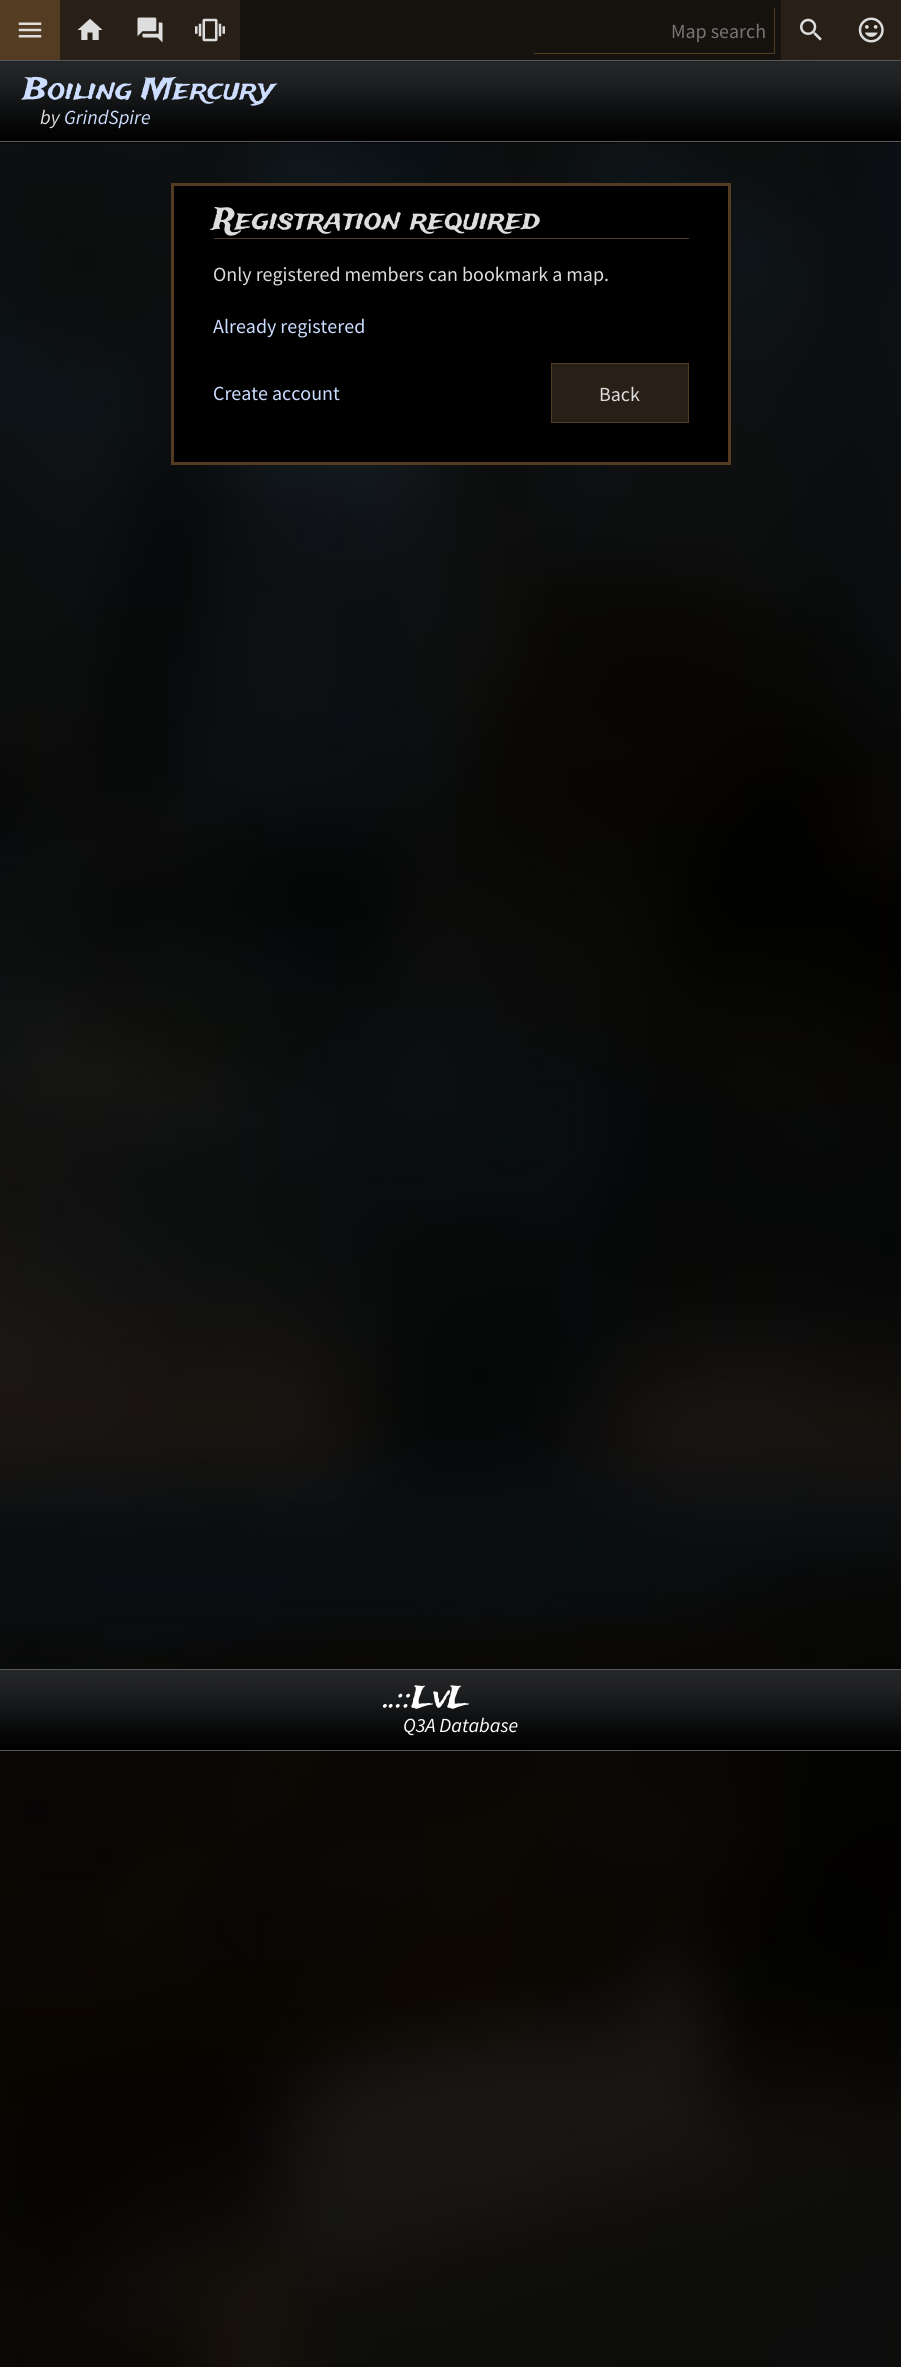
#include <cairo/cairo.h>
#include <math.h>
#include <stddef.h>


static void draw_image(cairo_t *cr, const char *path, double x, double y, double w, double h) {
  cairo_surface_t *image = cairo_image_surface_create_from_png(path);
  cairo_save(cr);
  cairo_set_source_surface(cr, image, x, y);
  cairo_rectangle(cr, x, y, w, h);
  cairo_fill(cr);
  cairo_restore(cr);
  cairo_surface_destroy(image);
}

static void draw(cairo_t *cr) {
  cairo_set_source_rgb(cr, 1, 1, 1);
  cairo_paint(cr);
  cairo_set_source_rgb(cr, 22 / 255.0, 19 / 255.0, 15 / 255.0);
  cairo_rectangle(cr, 240, 0, 541, 60);
  cairo_fill(cr);
  cairo_set_source_rgb(cr, 84 / 255.0, 60 / 255.0, 34 / 255.0);
  cairo_rectangle(cr, 0, 0, 60, 60);
  cairo_fill(cr);
  draw_image(cr, "images/1.png", 18, 22, 24, 16);
  cairo_set_source_rgb(cr, 40 / 255.0, 32 / 255.0, 22 / 255.0);
  cairo_rectangle(cr, 60, 0, 180, 60);
  cairo_fill(cr);
  draw_image(cr, "images/2.png", 77, 18, 26, 22);
  cairo_rectangle(cr, 781, 0, 120, 60);
  cairo_fill(cr);
  draw_image(cr, "images/3.png", 800, 18, 22, 23);
  draw_image(cr, "images/4.png", 858, 17, 26, 26);
  draw_image(cr, "images/5.png", 137, 17, 26, 26);
  draw_image(cr, "images/6.png", 195, 18, 30, 24);
  cairo_set_source_rgb(cr, 84 / 255.0, 60 / 255.0, 34 / 255.0);
  cairo_rectangle(cr, 774, 8, 1, 46);
  cairo_fill(cr);
  cairo_rectangle(cr, 534, 53, 241, 1);
  cairo_fill(cr);
  draw_image(cr, "images/7.png", 0, 61, 901, 2306);
  draw_image(cr, "images/8.png", 0, 61, 901, 82);
  cairo_set_source_rgb(cr, 86 / 255.0, 88 / 255.0, 93 / 255.0);
  cairo_rectangle(cr, 0, 60, 901, 1);
  cairo_fill(cr);
  cairo_rectangle(cr, 0, 141, 901, 1);
  cairo_fill(cr);
  cairo_set_source_rgb(cr, 0, 0, 0);
  cairo_rectangle(cr, 172.5, 184.5, 557, 279);
  cairo_fill_preserve(cr);
  cairo_set_source_rgb(cr, 84 / 255.0, 60 / 255.0, 34 / 255.0);
  cairo_set_line_width(cr, 3);
  cairo_stroke(cr);
  cairo_rectangle(cr, 214, 238, 475, 1);
  cairo_fill(cr);
  cairo_set_source_rgb(cr, 40 / 255.0, 32 / 255.0, 22 / 255.0);
  cairo_rectangle(cr, 551.5, 363.5, 137, 59);
  cairo_fill_preserve(cr);
  cairo_set_source_rgb(cr, 84 / 255.0, 60 / 255.0, 34 / 255.0);
  cairo_set_line_width(cr, 1);
  cairo_stroke(cr);
  draw_image(cr, "images/9.png", 0, 1670, 901, 80);
  cairo_set_source_rgb(cr, 86 / 255.0, 88 / 255.0, 93 / 255.0);
  cairo_rectangle(cr, 0, 1669, 901, 1);
  cairo_fill(cr);
  cairo_rectangle(cr, 0, 1750, 901, 1);
  cairo_fill(cr);
  cairo_select_font_face(cr, "Source Sans Pro", CAIRO_FONT_SLANT_NORMAL, CAIRO_FONT_WEIGHT_NORMAL);
  cairo_set_font_size(cr, 20);
  cairo_set_source_rgb(cr, 117 / 255.0, 117 / 255.0, 117 / 255.0);
  cairo_move_to(cr, 671, 38);
  cairo_show_text(cr, "Map search");
  cairo_select_font_face(cr, "Trade Winds", CAIRO_FONT_SLANT_NORMAL, CAIRO_FONT_WEIGHT_NORMAL);
  cairo_set_font_size(cr, 30);
  cairo_set_source_rgb(cr, 204 / 255.0, 221 / 255.0, 1);
  cairo_move_to(cr, 23, 99);
  cairo_show_text(cr, "Boiling Mercury");
  cairo_select_font_face(cr, "Source Sans Pro", CAIRO_FONT_SLANT_ITALIC, CAIRO_FONT_WEIGHT_NORMAL);
  cairo_set_font_size(cr, 20);
  cairo_set_source_rgb(cr, 221 / 255.0, 221 / 255.0, 221 / 255.0);
  cairo_move_to(cr, 40, 124);
  cairo_show_text(cr, "by");
  cairo_set_source_rgb(cr, 204 / 255.0, 221 / 255.0, 1);
  cairo_move_to(cr, 64, 124);
  cairo_show_text(cr, "GrindSpire");
  cairo_select_font_face(cr, "Trade Winds", CAIRO_FONT_SLANT_NORMAL, CAIRO_FONT_WEIGHT_NORMAL);
  cairo_set_font_size(cr, 30);
  cairo_set_source_rgb(cr, 221 / 255.0, 221 / 255.0, 221 / 255.0);
  cairo_move_to(cr, 213, 229);
  cairo_show_text(cr, "Registration required");
  cairo_select_font_face(cr, "Source Sans Pro", CAIRO_FONT_SLANT_NORMAL, CAIRO_FONT_WEIGHT_NORMAL);
  cairo_set_font_size(cr, 20);
  cairo_move_to(cr, 213, 281);
  cairo_show_text(cr, "Only registered members can bookmark a map.");
  cairo_set_source_rgb(cr, 204 / 255.0, 221 / 255.0, 1);
  cairo_move_to(cr, 213, 333);
  cairo_show_text(cr, "Already registered");
  cairo_move_to(cr, 213, 400);
  cairo_show_text(cr, "Create account");
  cairo_set_source_rgb(cr, 221 / 255.0, 221 / 255.0, 221 / 255.0);
  cairo_move_to(cr, 599, 401);
  cairo_show_text(cr, "Back");
  cairo_select_font_face(cr, "Trade Winds", CAIRO_FONT_SLANT_NORMAL, CAIRO_FONT_WEIGHT_NORMAL);
  cairo_set_font_size(cr, 30);
  cairo_set_source_rgb(cr, 1, 1, 1);
  cairo_move_to(cr, 385, 1707);
  cairo_show_text(cr, "..::LvL");
  cairo_select_font_face(cr, "Source Sans Pro", CAIRO_FONT_SLANT_ITALIC, CAIRO_FONT_WEIGHT_NORMAL);
  cairo_set_font_size(cr, 20);
  cairo_move_to(cr, 403, 1732);
  cairo_show_text(cr, "Q3A Database");
}

int main(void) {
  cairo_surface_t *surface = cairo_image_surface_create(CAIRO_FORMAT_RGB24, 901, 2367);
  cairo_t *cr = cairo_create(surface);
  cairo_font_options_t *options = cairo_font_options_create();
  cairo_font_options_set_hint_metrics(options, CAIRO_HINT_METRICS_OFF);
  cairo_font_options_set_hint_style(options, CAIRO_HINT_STYLE_NONE);
  cairo_set_font_options(cr, options);
  cairo_set_miter_limit(cr, 4);
  draw(cr);
  cairo_surface_write_to_png(surface, "out.png");
  cairo_font_options_destroy(options);
  cairo_destroy(cr);
  cairo_surface_destroy(surface);
  return 0;
}
